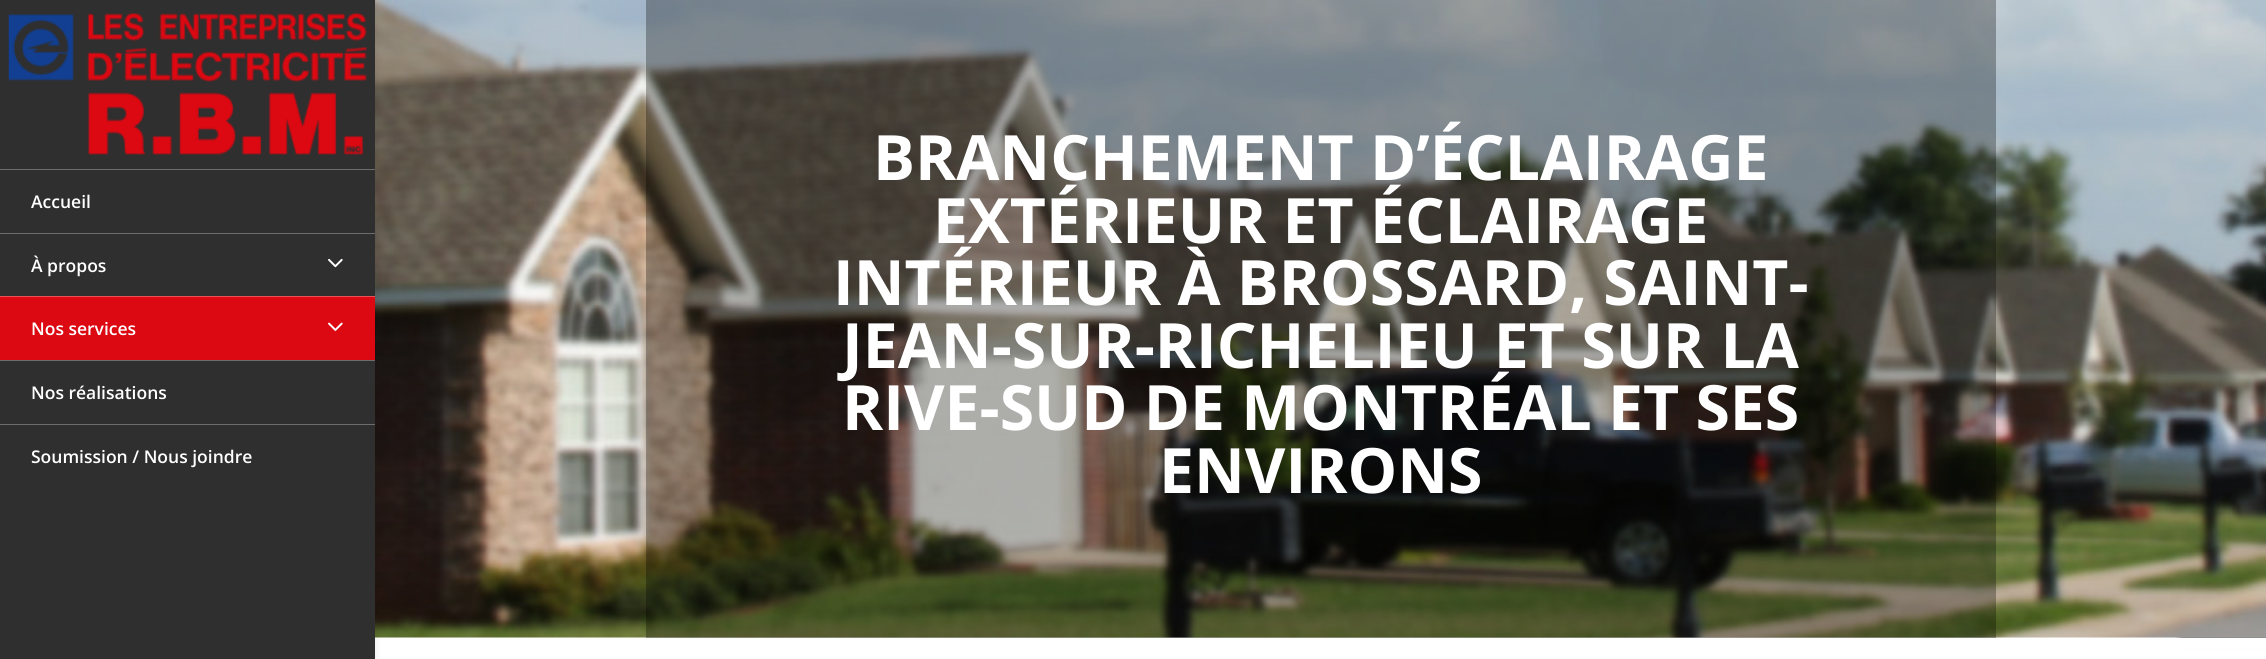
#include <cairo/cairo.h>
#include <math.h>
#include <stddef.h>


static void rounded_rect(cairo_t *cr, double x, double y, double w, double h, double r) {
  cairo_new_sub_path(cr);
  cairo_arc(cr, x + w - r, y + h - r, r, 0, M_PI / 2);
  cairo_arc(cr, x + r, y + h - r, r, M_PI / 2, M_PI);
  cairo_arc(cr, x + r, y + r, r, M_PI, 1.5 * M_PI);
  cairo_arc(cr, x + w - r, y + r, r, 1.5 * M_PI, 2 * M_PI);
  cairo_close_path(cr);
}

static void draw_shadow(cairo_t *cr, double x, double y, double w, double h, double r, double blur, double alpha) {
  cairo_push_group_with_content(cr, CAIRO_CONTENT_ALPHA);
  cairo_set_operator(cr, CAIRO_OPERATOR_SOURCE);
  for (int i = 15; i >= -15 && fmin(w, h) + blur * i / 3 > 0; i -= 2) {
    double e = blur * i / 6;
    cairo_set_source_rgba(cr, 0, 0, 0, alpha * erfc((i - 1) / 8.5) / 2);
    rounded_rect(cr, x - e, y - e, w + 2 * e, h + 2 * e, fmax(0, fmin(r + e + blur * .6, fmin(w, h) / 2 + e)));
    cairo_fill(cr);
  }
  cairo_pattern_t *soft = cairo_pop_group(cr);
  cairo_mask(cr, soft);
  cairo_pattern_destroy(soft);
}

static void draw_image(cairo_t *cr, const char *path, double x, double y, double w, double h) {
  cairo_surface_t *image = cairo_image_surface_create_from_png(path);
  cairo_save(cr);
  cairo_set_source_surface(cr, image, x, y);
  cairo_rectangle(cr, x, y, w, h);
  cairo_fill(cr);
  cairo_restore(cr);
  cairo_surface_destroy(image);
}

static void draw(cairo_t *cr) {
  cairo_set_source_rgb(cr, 1, 1, 1);
  cairo_paint(cr);
  cairo_set_source_rgb(cr, 128 / 255.0, 128 / 255.0, 128 / 255.0);
  draw_shadow(cr, 2179, 568, 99, 75, 2.5, 3, 1);
  draw_image(cr, "images/4.png", 375, 0, 1891, 638);
  cairo_set_source_rgb(cr, 0, 0, 0);
  draw_shadow(cr, 0, 0, 375, 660, 0, 4.5, 0.1);
  cairo_set_source_rgb(cr, 47 / 255.0, 47 / 255.0, 47 / 255.0);
  cairo_rectangle(cr, 0, 0, 375, 659);
  cairo_fill(cr);
  draw_image(cr, "images/1.png", 8, 13, 359, 142);
  cairo_set_source_rgb(cr, 109 / 255.0, 109 / 255.0, 109 / 255.0);
  cairo_rectangle(cr, 0, 169, 375, 1);
  cairo_fill(cr);
  cairo_rectangle(cr, 0, 233, 375, 1);
  cairo_fill(cr);
  draw_image(cr, "images/2.png", 328, 258, 15, 10);
  cairo_set_source_rgb(cr, 220 / 255.0, 8 / 255.0, 18 / 255.0);
  cairo_rectangle(cr, 0, 297, 375, 63);
  cairo_fill(cr);
  cairo_set_source_rgb(cr, 231 / 255.0, 82 / 255.0, 89 / 255.0);
  cairo_rectangle(cr, 0, 296, 375, 1);
  cairo_fill(cr);
  draw_image(cr, "images/3.png", 328, 322, 15, 9);
  cairo_set_source_rgb(cr, 109 / 255.0, 109 / 255.0, 109 / 255.0);
  cairo_rectangle(cr, 0, 360, 375, 1);
  cairo_fill(cr);
  cairo_rectangle(cr, 0, 424, 375, 1);
  cairo_fill(cr);
  cairo_set_source_rgba(cr, 0, 0, 0, 0.3);
  cairo_rectangle(cr, 646, 0, 1350, 638);
  cairo_fill(cr);
  cairo_set_source_rgb(cr, 1, 1, 1);
  cairo_rectangle(cr, 2173, 638, 93, 11);
  cairo_fill(cr);
  cairo_select_font_face(cr, "Open Sans SemiBold", CAIRO_FONT_SLANT_NORMAL, CAIRO_FONT_WEIGHT_NORMAL);
  cairo_set_font_size(cr, 17.5);
  cairo_move_to(cr, 31, 208);
  cairo_show_text(cr, "Accueil");
  cairo_move_to(cr, 31, 272);
  cairo_show_text(cr, "À propos");
  cairo_move_to(cr, 31, 335);
  cairo_show_text(cr, "Nos services");
  cairo_move_to(cr, 31, 399);
  cairo_show_text(cr, "Nos réalisations");
  cairo_move_to(cr, 31, 463);
  cairo_show_text(cr, "Soumission / Nous joindre");
  cairo_select_font_face(cr, "Open Sans", CAIRO_FONT_SLANT_NORMAL, CAIRO_FONT_WEIGHT_BOLD);
  cairo_set_font_size(cr, 62.5);
  cairo_move_to(cr, 873, 180);
  cairo_show_text(cr, "BRANCHEMENT D’ÉCLAIRAGE");
  cairo_move_to(cr, 933, 243);
  cairo_show_text(cr, "EXTÉRIEUR ET ÉCLAIRAGE");
  cairo_move_to(cr, 833, 305);
  cairo_show_text(cr, "INTÉRIEUR À BROSSARD, SAINT-");
  cairo_move_to(cr, 842, 368);
  cairo_show_text(cr, "JEAN-SUR-RICHELIEU ET SUR LA");
  cairo_move_to(cr, 842, 430);
  cairo_show_text(cr, "RIVE-SUD DE MONTRÉAL ET SES");
  cairo_move_to(cr, 1159, 493);
  cairo_show_text(cr, "ENVIRONS");
}

int main(void) {
  cairo_surface_t *surface = cairo_image_surface_create(CAIRO_FORMAT_RGB24, 2266, 659);
  cairo_t *cr = cairo_create(surface);
  cairo_font_options_t *options = cairo_font_options_create();
  cairo_font_options_set_hint_metrics(options, CAIRO_HINT_METRICS_OFF);
  cairo_font_options_set_hint_style(options, CAIRO_HINT_STYLE_NONE);
  cairo_set_font_options(cr, options);
  cairo_set_miter_limit(cr, 4);
  draw(cr);
  cairo_surface_write_to_png(surface, "out.png");
  cairo_font_options_destroy(options);
  cairo_destroy(cr);
  cairo_surface_destroy(surface);
  return 0;
}
